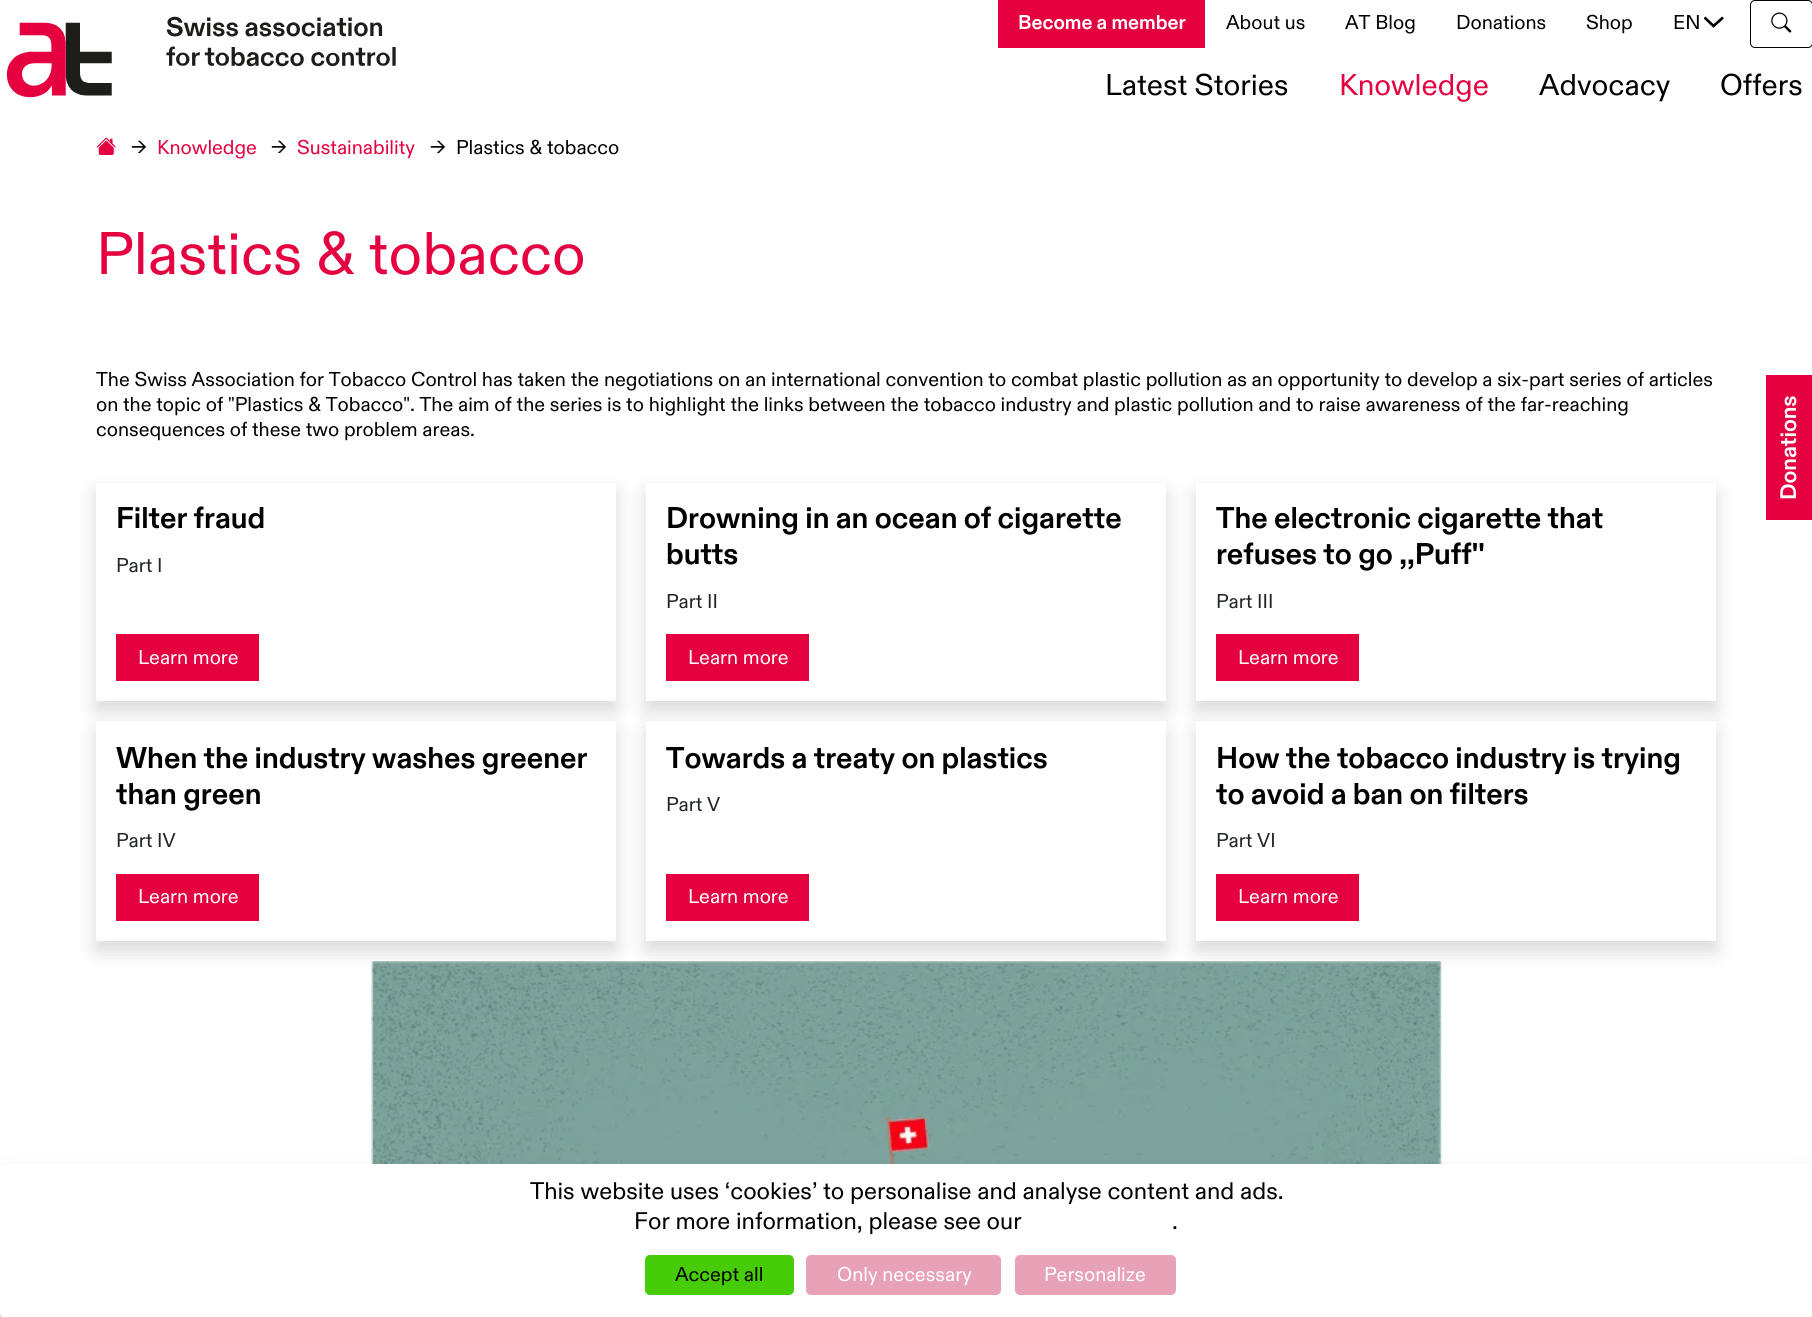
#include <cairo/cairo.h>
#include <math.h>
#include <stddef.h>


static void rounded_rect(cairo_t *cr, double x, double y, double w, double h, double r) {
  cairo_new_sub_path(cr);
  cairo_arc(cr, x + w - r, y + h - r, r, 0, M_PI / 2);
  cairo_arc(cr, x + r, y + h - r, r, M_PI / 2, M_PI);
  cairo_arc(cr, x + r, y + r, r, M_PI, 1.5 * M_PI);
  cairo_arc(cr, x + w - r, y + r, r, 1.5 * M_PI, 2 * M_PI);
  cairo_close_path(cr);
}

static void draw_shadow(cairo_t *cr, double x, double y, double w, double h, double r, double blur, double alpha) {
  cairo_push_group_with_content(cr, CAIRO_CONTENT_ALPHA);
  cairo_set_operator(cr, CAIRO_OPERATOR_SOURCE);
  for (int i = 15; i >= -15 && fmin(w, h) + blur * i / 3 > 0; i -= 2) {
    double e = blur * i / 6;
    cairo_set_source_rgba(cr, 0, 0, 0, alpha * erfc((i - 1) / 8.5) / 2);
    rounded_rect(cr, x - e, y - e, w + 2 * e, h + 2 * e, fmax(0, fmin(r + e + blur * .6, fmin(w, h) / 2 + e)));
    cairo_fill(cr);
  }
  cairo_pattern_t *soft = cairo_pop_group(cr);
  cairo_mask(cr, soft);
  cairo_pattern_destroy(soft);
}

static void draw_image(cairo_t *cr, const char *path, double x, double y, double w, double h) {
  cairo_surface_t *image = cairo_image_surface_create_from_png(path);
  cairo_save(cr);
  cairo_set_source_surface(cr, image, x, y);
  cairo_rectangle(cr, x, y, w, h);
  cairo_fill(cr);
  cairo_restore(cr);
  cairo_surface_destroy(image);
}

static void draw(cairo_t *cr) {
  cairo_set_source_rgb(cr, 1, 1, 1);
  cairo_paint(cr);
  draw_image(cr, "images/1.png", 6, 16, 390, 82);
  cairo_set_source_rgb(cr, 229 / 255.0, 0, 64 / 255.0);
  cairo_rectangle(cr, 998, 0, 207, 48);
  cairo_fill(cr);
  cairo_save(cr);
  cairo_new_path(cr);
  cairo_move_to(cr, 1724, 16.5);
  cairo_line_to(cr, 1724, 28.5);
  cairo_line_to(cr, 1704, 28.5);
  cairo_line_to(cr, 1704, 16.5);
  cairo_close_path(cr);
  cairo_clip(cr);
  cairo_new_path(cr);
  cairo_move_to(cr, 1723, 17.5);
  cairo_line_to(cr, 1713.5, 26);
  cairo_line_to(cr, 1704.5, 17.5);
  cairo_set_source_rgb(cr, 0, 0, 0);
  cairo_set_line_width(cr, 2.7);
  cairo_stroke(cr);
  cairo_restore(cr);
  rounded_rect(cr, 1750.5, 0.5, 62, 47, 4.5);
  cairo_set_source_rgb(cr, 0, 0, 0);
  cairo_set_line_width(cr, 1);
  cairo_stroke(cr);
  draw_image(cr, "images/2.png", 1771, 12, 21, 21);
  draw_image(cr, "images/3.png", 96, 137, 20, 18);
  cairo_set_source_rgb(cr, 0, 0, 0);
  draw_shadow(cr, 96, 493, 520, 218, 0, 10, 0.15);
  cairo_set_source_rgb(cr, 1, 1, 1);
  cairo_rectangle(cr, 96, 483, 520, 218);
  cairo_fill(cr);
  cairo_set_source_rgb(cr, 229 / 255.0, 0, 64 / 255.0);
  cairo_rectangle(cr, 116, 634, 143, 47);
  cairo_fill(cr);
  cairo_set_source_rgb(cr, 0, 0, 0);
  draw_shadow(cr, 646, 493, 520, 218, 0, 10, 0.15);
  cairo_set_source_rgb(cr, 1, 1, 1);
  cairo_rectangle(cr, 646, 483, 520, 218);
  cairo_fill(cr);
  cairo_set_source_rgb(cr, 229 / 255.0, 0, 64 / 255.0);
  cairo_rectangle(cr, 666, 634, 143, 47);
  cairo_fill(cr);
  cairo_set_source_rgb(cr, 0, 0, 0);
  draw_shadow(cr, 1196, 493, 520, 218, 0, 10, 0.15);
  cairo_set_source_rgb(cr, 1, 1, 1);
  cairo_rectangle(cr, 1196, 483, 520, 218);
  cairo_fill(cr);
  cairo_set_source_rgb(cr, 229 / 255.0, 0, 64 / 255.0);
  cairo_rectangle(cr, 1216, 634, 143, 47);
  cairo_fill(cr);
  cairo_set_source_rgb(cr, 0, 0, 0);
  draw_shadow(cr, 96, 731, 520, 220, 0, 10, 0.15);
  cairo_set_source_rgb(cr, 1, 1, 1);
  cairo_rectangle(cr, 96, 721, 520, 220);
  cairo_fill(cr);
  cairo_set_source_rgb(cr, 229 / 255.0, 0, 64 / 255.0);
  cairo_rectangle(cr, 116, 874, 143, 47);
  cairo_fill(cr);
  cairo_set_source_rgb(cr, 0, 0, 0);
  draw_shadow(cr, 646, 731, 520, 220, 0, 10, 0.15);
  cairo_set_source_rgb(cr, 1, 1, 1);
  cairo_rectangle(cr, 646, 721, 520, 220);
  cairo_fill(cr);
  cairo_set_source_rgb(cr, 229 / 255.0, 0, 64 / 255.0);
  cairo_rectangle(cr, 666, 874, 143, 47);
  cairo_fill(cr);
  cairo_set_source_rgb(cr, 0, 0, 0);
  draw_shadow(cr, 1196, 731, 520, 220, 0, 10, 0.15);
  cairo_set_source_rgb(cr, 1, 1, 1);
  cairo_rectangle(cr, 1196, 721, 520, 220);
  cairo_fill(cr);
  cairo_set_source_rgb(cr, 229 / 255.0, 0, 64 / 255.0);
  cairo_rectangle(cr, 1216, 874, 143, 47);
  cairo_fill(cr);
  draw_image(cr, "images/4.png", 371, 961, 1071, 203);
  cairo_rectangle(cr, 1766, 375, 46, 145);
  cairo_fill(cr);
  cairo_set_source_rgb(cr, 0, 0, 0);
  draw_shadow(cr, 10, 1184, 1793, 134, 0, 10, 0.3);
  cairo_set_source_rgb(cr, 50 / 255.0, 50 / 255.0, 93 / 255.0);
  draw_shadow(cr, 6, 1186, 1800, 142, 0, 17, 0.25);
  cairo_set_source_rgb(cr, 1, 1, 1);
  rounded_rect(cr, 0, 1164, 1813, 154, 6);
  cairo_fill(cr);
  cairo_set_source_rgb(cr, 70 / 255.0, 204 / 255.0, 8 / 255.0);
  rounded_rect(cr, 645, 1255, 149, 40, 5);
  cairo_fill(cr);
  cairo_set_source_rgb(cr, 232 / 255.0, 162 / 255.0, 184 / 255.0);
  rounded_rect(cr, 806, 1255, 195, 40, 5);
  cairo_fill(cr);
  rounded_rect(cr, 1015, 1255, 161, 40, 5);
  cairo_fill(cr);
  cairo_select_font_face(cr, "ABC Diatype", CAIRO_FONT_SLANT_NORMAL, CAIRO_FONT_WEIGHT_BOLD);
  cairo_set_font_size(cr, 20);
  cairo_set_source_rgb(cr, 1, 1, 1);
  cairo_move_to(cr, 1018, 29);
  cairo_show_text(cr, "Become a member");
  cairo_select_font_face(cr, "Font", CAIRO_FONT_SLANT_NORMAL, CAIRO_FONT_WEIGHT_NORMAL);
  cairo_set_source_rgb(cr, 0, 0, 0);
  cairo_move_to(cr, 1226, 29);
  cairo_show_text(cr, "About us");
  cairo_move_to(cr, 1345, 29);
  cairo_show_text(cr, "AT Blog");
  cairo_move_to(cr, 1456, 29);
  cairo_show_text(cr, "Donations");
  cairo_move_to(cr, 1586, 29);
  cairo_show_text(cr, "Shop");
  cairo_move_to(cr, 1673, 29);
  cairo_show_text(cr, "EN");
  cairo_set_font_size(cr, 30);
  cairo_move_to(cr, 1105, 95);
  cairo_show_text(cr, "Latest Stories");
  cairo_set_source_rgb(cr, 229 / 255.0, 0, 64 / 255.0);
  cairo_move_to(cr, 1339, 95);
  cairo_show_text(cr, "Knowledge");
  cairo_set_source_rgb(cr, 0, 0, 0);
  cairo_move_to(cr, 1539, 95);
  cairo_show_text(cr, "Advocacy");
  cairo_move_to(cr, 1720, 95);
  cairo_show_text(cr, "Offers");
  cairo_set_font_size(cr, 20);
  cairo_move_to(cr, 131, 154);
  cairo_show_text(cr, "→");
  cairo_set_source_rgb(cr, 229 / 255.0, 0, 64 / 255.0);
  cairo_move_to(cr, 157, 154);
  cairo_show_text(cr, "Knowledge");
  cairo_set_source_rgb(cr, 0, 0, 0);
  cairo_move_to(cr, 271, 154);
  cairo_show_text(cr, "→");
  cairo_set_source_rgb(cr, 229 / 255.0, 0, 64 / 255.0);
  cairo_move_to(cr, 297, 154);
  cairo_show_text(cr, "Sustainability");
  cairo_set_source_rgb(cr, 0, 0, 0);
  cairo_move_to(cr, 430, 154);
  cairo_show_text(cr, "→");
  cairo_move_to(cr, 456, 154);
  cairo_show_text(cr, "Plastics & tobacco");
  cairo_set_font_size(cr, 60);
  cairo_set_source_rgb(cr, 229 / 255.0, 0, 64 / 255.0);
  cairo_move_to(cr, 96, 274);
  cairo_show_text(cr, "Plastics & tobacco");
  cairo_set_font_size(cr, 20);
  cairo_set_source_rgb(cr, 0, 0, 0);
  cairo_move_to(cr, 96, 386);
  cairo_show_text(cr, "The Swiss Association for Tobacco Control has taken the negotiations on an international convention to combat plastic pollution as an opportunity to develop a six-part series of articles");
  cairo_move_to(cr, 96, 411);
  cairo_show_text(cr, "on the topic of \"Plastics & Tobacco\". The aim of the series is to highlight the links between the tobacco industry and plastic pollution and to raise awareness of the far-reaching");
  cairo_move_to(cr, 96, 436);
  cairo_show_text(cr, "consequences of these two problem areas.");
  cairo_select_font_face(cr, "ABC Diatype", CAIRO_FONT_SLANT_NORMAL, CAIRO_FONT_WEIGHT_BOLD);
  cairo_set_font_size(cr, 30);
  cairo_move_to(cr, 116, 528);
  cairo_show_text(cr, "Filter fraud");
  cairo_select_font_face(cr, "Font", CAIRO_FONT_SLANT_NORMAL, CAIRO_FONT_WEIGHT_NORMAL);
  cairo_set_font_size(cr, 20);
  cairo_set_source_rgb(cr, 33 / 255.0, 37 / 255.0, 41 / 255.0);
  cairo_move_to(cr, 116, 572);
  cairo_show_text(cr, "Part I");
  cairo_set_source_rgb(cr, 1, 1, 1);
  cairo_move_to(cr, 138, 664);
  cairo_show_text(cr, "Learn more");
  cairo_select_font_face(cr, "ABC Diatype", CAIRO_FONT_SLANT_NORMAL, CAIRO_FONT_WEIGHT_BOLD);
  cairo_set_font_size(cr, 30);
  cairo_set_source_rgb(cr, 0, 0, 0);
  cairo_move_to(cr, 666, 528);
  cairo_show_text(cr, "Drowning in an ocean of cigarette");
  cairo_move_to(cr, 666, 564);
  cairo_show_text(cr, "butts");
  cairo_select_font_face(cr, "Font", CAIRO_FONT_SLANT_NORMAL, CAIRO_FONT_WEIGHT_NORMAL);
  cairo_set_font_size(cr, 20);
  cairo_set_source_rgb(cr, 33 / 255.0, 37 / 255.0, 41 / 255.0);
  cairo_move_to(cr, 666, 608);
  cairo_show_text(cr, "Part II");
  cairo_set_source_rgb(cr, 1, 1, 1);
  cairo_move_to(cr, 688, 664);
  cairo_show_text(cr, "Learn more");
  cairo_select_font_face(cr, "ABC Diatype", CAIRO_FONT_SLANT_NORMAL, CAIRO_FONT_WEIGHT_BOLD);
  cairo_set_font_size(cr, 30);
  cairo_set_source_rgb(cr, 0, 0, 0);
  cairo_move_to(cr, 1216, 528);
  cairo_show_text(cr, "The electronic cigarette that");
  cairo_move_to(cr, 1216, 564);
  cairo_show_text(cr, "refuses to go ,,Puff''");
  cairo_select_font_face(cr, "Font", CAIRO_FONT_SLANT_NORMAL, CAIRO_FONT_WEIGHT_NORMAL);
  cairo_set_font_size(cr, 20);
  cairo_set_source_rgb(cr, 33 / 255.0, 37 / 255.0, 41 / 255.0);
  cairo_move_to(cr, 1216, 608);
  cairo_show_text(cr, "Part III");
  cairo_set_source_rgb(cr, 1, 1, 1);
  cairo_move_to(cr, 1238, 664);
  cairo_show_text(cr, "Learn more");
  cairo_select_font_face(cr, "ABC Diatype", CAIRO_FONT_SLANT_NORMAL, CAIRO_FONT_WEIGHT_BOLD);
  cairo_set_font_size(cr, 30);
  cairo_set_source_rgb(cr, 0, 0, 0);
  cairo_move_to(cr, 116, 768);
  cairo_show_text(cr, "When the industry washes greener");
  cairo_move_to(cr, 116, 804);
  cairo_show_text(cr, "than green");
  cairo_select_font_face(cr, "Font", CAIRO_FONT_SLANT_NORMAL, CAIRO_FONT_WEIGHT_NORMAL);
  cairo_set_font_size(cr, 20);
  cairo_set_source_rgb(cr, 33 / 255.0, 37 / 255.0, 41 / 255.0);
  cairo_move_to(cr, 116, 847);
  cairo_show_text(cr, "Part IV");
  cairo_set_source_rgb(cr, 1, 1, 1);
  cairo_move_to(cr, 138, 903);
  cairo_show_text(cr, "Learn more");
  cairo_select_font_face(cr, "ABC Diatype", CAIRO_FONT_SLANT_NORMAL, CAIRO_FONT_WEIGHT_BOLD);
  cairo_set_font_size(cr, 30);
  cairo_set_source_rgb(cr, 0, 0, 0);
  cairo_move_to(cr, 666, 768);
  cairo_show_text(cr, "Towards a treaty on plastics");
  cairo_select_font_face(cr, "Font", CAIRO_FONT_SLANT_NORMAL, CAIRO_FONT_WEIGHT_NORMAL);
  cairo_set_font_size(cr, 20);
  cairo_set_source_rgb(cr, 33 / 255.0, 37 / 255.0, 41 / 255.0);
  cairo_move_to(cr, 666, 811);
  cairo_show_text(cr, "Part V");
  cairo_set_source_rgb(cr, 1, 1, 1);
  cairo_move_to(cr, 688, 903);
  cairo_show_text(cr, "Learn more");
  cairo_select_font_face(cr, "ABC Diatype", CAIRO_FONT_SLANT_NORMAL, CAIRO_FONT_WEIGHT_BOLD);
  cairo_set_font_size(cr, 30);
  cairo_set_source_rgb(cr, 0, 0, 0);
  cairo_move_to(cr, 1216, 768);
  cairo_show_text(cr, "How the tobacco industry is trying");
  cairo_move_to(cr, 1216, 804);
  cairo_show_text(cr, "to avoid a ban on filters");
  cairo_select_font_face(cr, "Font", CAIRO_FONT_SLANT_NORMAL, CAIRO_FONT_WEIGHT_NORMAL);
  cairo_set_font_size(cr, 20);
  cairo_set_source_rgb(cr, 33 / 255.0, 37 / 255.0, 41 / 255.0);
  cairo_move_to(cr, 1216, 847);
  cairo_show_text(cr, "Part VI");
  cairo_set_source_rgb(cr, 1, 1, 1);
  cairo_move_to(cr, 1238, 903);
  cairo_show_text(cr, "Learn more");
  cairo_select_font_face(cr, "ABC Diatype", CAIRO_FONT_SLANT_NORMAL, CAIRO_FONT_WEIGHT_BOLD);
  cairo_set_font_size(cr, 22.5);
  cairo_save(cr);
  cairo_translate(cr, 1796, 500);
  cairo_rotate(cr, -90 * M_PI / 180);
  cairo_move_to(cr, 0, 0);
  cairo_show_text(cr, "Donations");
  cairo_restore(cr);
  cairo_select_font_face(cr, "Font", CAIRO_FONT_SLANT_NORMAL, CAIRO_FONT_WEIGHT_NORMAL);
  cairo_set_font_size(cr, 24);
  cairo_set_source_rgb(cr, 0, 0, 0);
  cairo_move_to(cr, 530, 1199);
  cairo_show_text(cr, "This website uses ‘cookies’ to personalise and analyse content and ads.");
  cairo_move_to(cr, 634, 1229);
  cairo_show_text(cr, "For more information, please see our");
  cairo_move_to(cr, 1172, 1229);
  cairo_show_text(cr, ".");
  cairo_set_font_size(cr, 20);
  cairo_move_to(cr, 675, 1281);
  cairo_show_text(cr, "Accept all");
  cairo_set_source_rgb(cr, 1, 1, 1);
  cairo_move_to(cr, 837, 1281);
  cairo_show_text(cr, "Only necessary");
  cairo_move_to(cr, 1044, 1281);
  cairo_show_text(cr, "Personalize");
}

int main(void) {
  cairo_surface_t *surface = cairo_image_surface_create(CAIRO_FORMAT_RGB24, 1812, 1317);
  cairo_t *cr = cairo_create(surface);
  cairo_font_options_t *options = cairo_font_options_create();
  cairo_font_options_set_hint_metrics(options, CAIRO_HINT_METRICS_OFF);
  cairo_font_options_set_hint_style(options, CAIRO_HINT_STYLE_NONE);
  cairo_set_font_options(cr, options);
  cairo_set_miter_limit(cr, 4);
  draw(cr);
  cairo_surface_write_to_png(surface, "out.png");
  cairo_font_options_destroy(options);
  cairo_destroy(cr);
  cairo_surface_destroy(surface);
  return 0;
}
